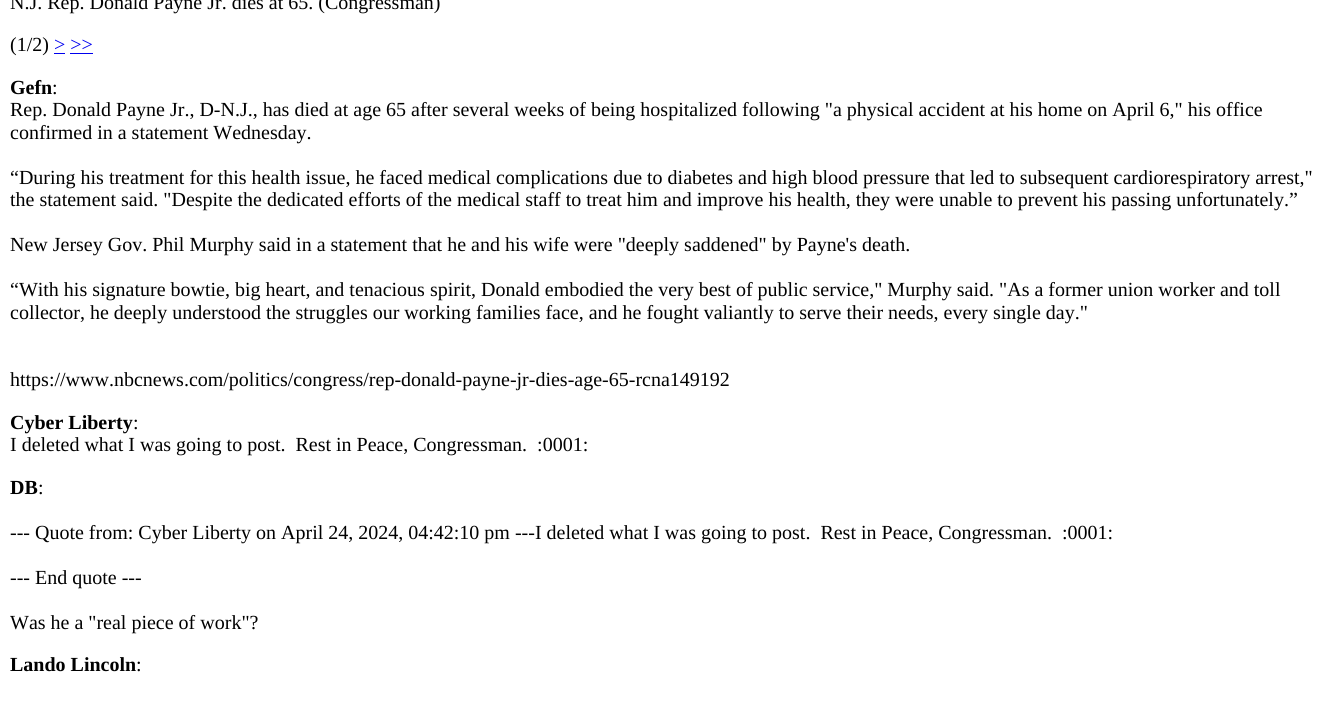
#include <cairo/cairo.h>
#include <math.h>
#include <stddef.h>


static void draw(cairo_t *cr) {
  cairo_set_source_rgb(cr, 1, 1, 1);
  cairo_paint(cr);
  cairo_set_source_rgb(cr, 0, 0, 238 / 255.0);
  cairo_rectangle(cr, 54, 53, 11, 1);
  cairo_fill(cr);
  cairo_rectangle(cr, 70, 53, 23, 1);
  cairo_fill(cr);
  cairo_select_font_face(cr, "Liberation Serif", CAIRO_FONT_SLANT_NORMAL, CAIRO_FONT_WEIGHT_NORMAL);
  cairo_set_font_size(cr, 20);
  cairo_set_source_rgb(cr, 0, 0, 0);
  cairo_move_to(cr, 10, 9);
  cairo_show_text(cr, "N.J. Rep. Donald Payne Jr. dies at 65. (Congressman)");
  cairo_move_to(cr, 10, 51);
  cairo_show_text(cr, "(1/2)");
  cairo_set_source_rgb(cr, 0, 0, 238 / 255.0);
  cairo_move_to(cr, 54, 51);
  cairo_show_text(cr, "> >>");
  cairo_select_font_face(cr, "Liberation Serif", CAIRO_FONT_SLANT_NORMAL, CAIRO_FONT_WEIGHT_BOLD);
  cairo_set_source_rgb(cr, 0, 0, 0);
  cairo_move_to(cr, 10, 94);
  cairo_show_text(cr, "Gefn");
  cairo_select_font_face(cr, "Liberation Serif", CAIRO_FONT_SLANT_NORMAL, CAIRO_FONT_WEIGHT_NORMAL);
  cairo_move_to(cr, 52, 94);
  cairo_show_text(cr, ":");
  cairo_move_to(cr, 10, 116);
  cairo_show_text(cr, "Rep. Donald Payne Jr., D-N.J., has died at age 65 after several weeks of being hospitalized following \"a physical accident at his home on April 6,\" his office");
  cairo_move_to(cr, 10, 139);
  cairo_show_text(cr, "confirmed in a statement Wednesday.");
  cairo_move_to(cr, 10, 184);
  cairo_show_text(cr, "“During his treatment for this health issue, he faced medical complications due to diabetes and high blood pressure that led to subsequent cardiorespiratory arrest,\"");
  cairo_move_to(cr, 10, 206);
  cairo_show_text(cr, "the statement said. \"Despite the dedicated efforts of the medical staff to treat him and improve his health, they were unable to prevent his passing unfortunately.”");
  cairo_move_to(cr, 10, 251);
  cairo_show_text(cr, "New Jersey Gov. Phil Murphy said in a statement that he and his wife were \"deeply saddened\" by Payne's death.");
  cairo_move_to(cr, 10, 296);
  cairo_show_text(cr, "“With his signature bowtie, big heart, and tenacious spirit, Donald embodied the very best of public service,\" Murphy said. \"As a former union worker and toll");
  cairo_move_to(cr, 10, 319);
  cairo_show_text(cr, "collector, he deeply understood the struggles our working families face, and he fought valiantly to serve their needs, every single day.\"");
  cairo_move_to(cr, 10, 386);
  cairo_show_text(cr, "https://www.nbcnews.com/politics/congress/rep-donald-payne-jr-dies-age-65-rcna149192");
  cairo_select_font_face(cr, "Liberation Serif", CAIRO_FONT_SLANT_NORMAL, CAIRO_FONT_WEIGHT_BOLD);
  cairo_move_to(cr, 10, 429);
  cairo_show_text(cr, "Cyber Liberty");
  cairo_select_font_face(cr, "Liberation Serif", CAIRO_FONT_SLANT_NORMAL, CAIRO_FONT_WEIGHT_NORMAL);
  cairo_move_to(cr, 133, 429);
  cairo_show_text(cr, ":");
  cairo_move_to(cr, 10, 451);
  cairo_show_text(cr, "I deleted what I was going to post.  Rest in Peace, Congressman.  :0001:");
  cairo_select_font_face(cr, "Liberation Serif", CAIRO_FONT_SLANT_NORMAL, CAIRO_FONT_WEIGHT_BOLD);
  cairo_move_to(cr, 10, 494);
  cairo_show_text(cr, "DB");
  cairo_select_font_face(cr, "Liberation Serif", CAIRO_FONT_SLANT_NORMAL, CAIRO_FONT_WEIGHT_NORMAL);
  cairo_move_to(cr, 38, 494);
  cairo_show_text(cr, ":");
  cairo_move_to(cr, 10, 539);
  cairo_show_text(cr, "--- Quote from: Cyber Liberty on April 24, 2024, 04:42:10 pm ---I deleted what I was going to post.  Rest in Peace, Congressman.  :0001:");
  cairo_move_to(cr, 10, 584);
  cairo_show_text(cr, "--- End quote ---");
  cairo_move_to(cr, 10, 629);
  cairo_show_text(cr, "Was he a \"real piece of work\"?");
  cairo_select_font_face(cr, "Liberation Serif", CAIRO_FONT_SLANT_NORMAL, CAIRO_FONT_WEIGHT_BOLD);
  cairo_move_to(cr, 10, 671);
  cairo_show_text(cr, "Lando Lincoln");
  cairo_select_font_face(cr, "Liberation Serif", CAIRO_FONT_SLANT_NORMAL, CAIRO_FONT_WEIGHT_NORMAL);
  cairo_move_to(cr, 136, 671);
  cairo_show_text(cr, ":");
}

int main(void) {
  cairo_surface_t *surface = cairo_image_surface_create(CAIRO_FORMAT_RGB24, 1337, 703);
  cairo_t *cr = cairo_create(surface);
  cairo_font_options_t *options = cairo_font_options_create();
  cairo_font_options_set_hint_metrics(options, CAIRO_HINT_METRICS_OFF);
  cairo_font_options_set_hint_style(options, CAIRO_HINT_STYLE_NONE);
  cairo_set_font_options(cr, options);
  cairo_set_miter_limit(cr, 4);
  draw(cr);
  cairo_surface_write_to_png(surface, "out.png");
  cairo_font_options_destroy(options);
  cairo_destroy(cr);
  cairo_surface_destroy(surface);
  return 0;
}
